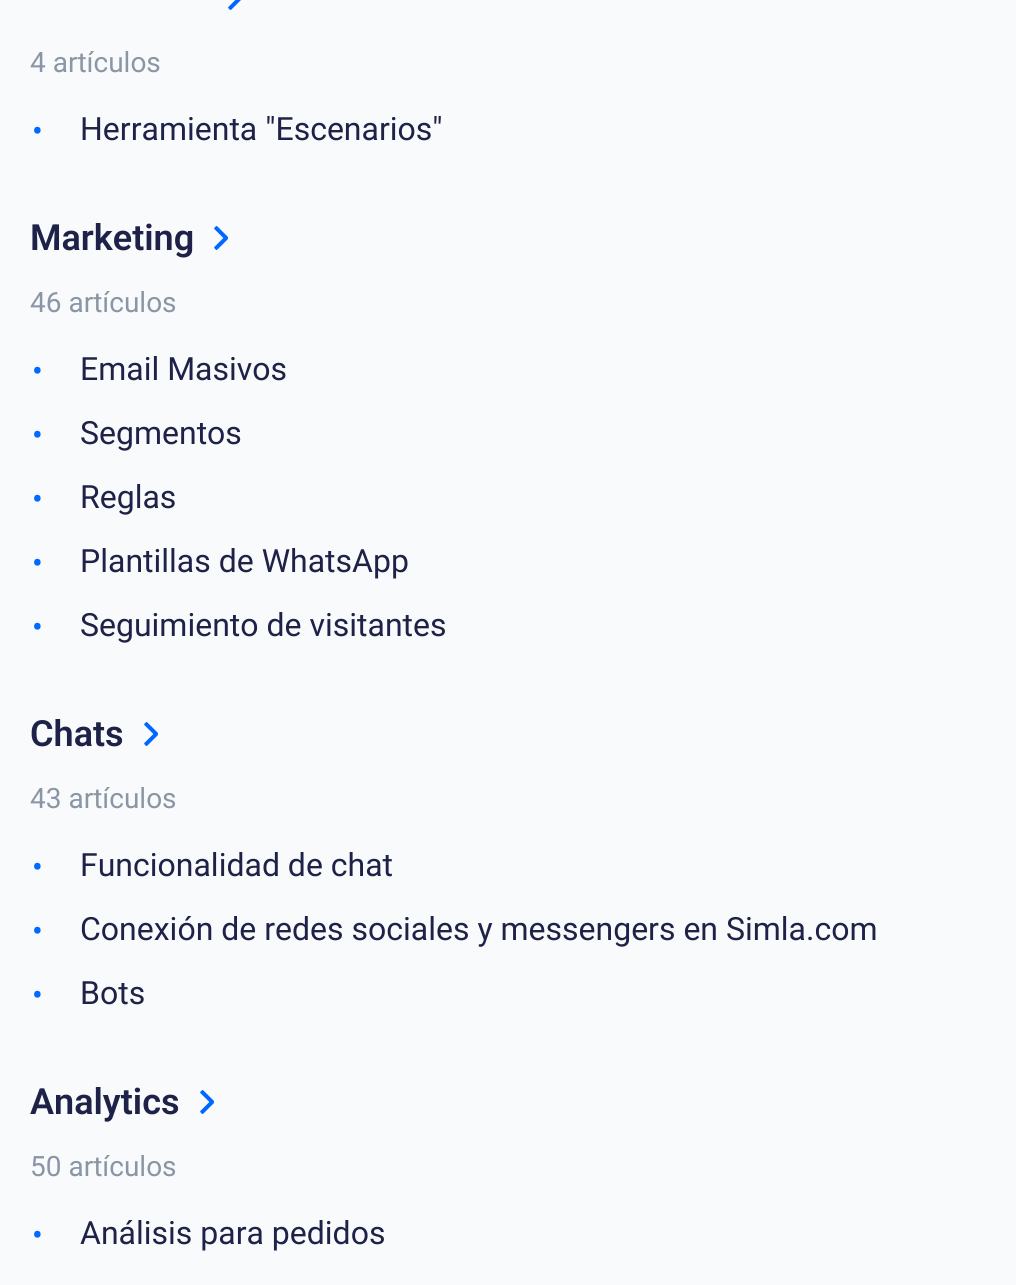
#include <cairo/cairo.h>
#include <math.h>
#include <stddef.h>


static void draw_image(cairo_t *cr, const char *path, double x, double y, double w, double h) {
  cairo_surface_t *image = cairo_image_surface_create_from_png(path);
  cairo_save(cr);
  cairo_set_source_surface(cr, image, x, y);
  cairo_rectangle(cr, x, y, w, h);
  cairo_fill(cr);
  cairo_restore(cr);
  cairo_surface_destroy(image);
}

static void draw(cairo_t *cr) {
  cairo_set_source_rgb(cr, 249 / 255.0, 250 / 255.0, 251 / 255.0);
  cairo_paint(cr);
  draw_image(cr, "images/1.png", 228, 0, 13, 10);
  draw_image(cr, "images/2.png", 214, 226, 14, 24);
  draw_image(cr, "images/2.png", 144, 722, 14, 24);
  draw_image(cr, "images/2.png", 200, 1090, 14, 24);
  cairo_select_font_face(cr, "Roboto", CAIRO_FONT_SLANT_NORMAL, CAIRO_FONT_WEIGHT_NORMAL);
  cairo_set_font_size(cr, 28);
  cairo_set_source_rgb(cr, 138 / 255.0, 150 / 255.0, 166 / 255.0);
  cairo_move_to(cr, 30, 72);
  cairo_show_text(cr, "4 artículos");
  cairo_set_font_size(cr, 32);
  cairo_set_source_rgb(cr, 0, 104 / 255.0, 1);
  cairo_move_to(cr, 32, 142);
  cairo_show_text(cr, "•");
  cairo_set_source_rgb(cr, 30 / 255.0, 34 / 255.0, 72 / 255.0);
  cairo_move_to(cr, 80, 140);
  cairo_show_text(cr, "Herramienta \"Escenarios\"");
  cairo_select_font_face(cr, "Roboto SemiBold", CAIRO_FONT_SLANT_NORMAL, CAIRO_FONT_WEIGHT_NORMAL);
  cairo_set_font_size(cr, 36);
  cairo_move_to(cr, 30, 250);
  cairo_show_text(cr, "Marketing");
  cairo_select_font_face(cr, "Roboto", CAIRO_FONT_SLANT_NORMAL, CAIRO_FONT_WEIGHT_NORMAL);
  cairo_set_font_size(cr, 28);
  cairo_set_source_rgb(cr, 138 / 255.0, 150 / 255.0, 166 / 255.0);
  cairo_move_to(cr, 30, 312);
  cairo_show_text(cr, "46 artículos");
  cairo_set_font_size(cr, 32);
  cairo_set_source_rgb(cr, 0, 104 / 255.0, 1);
  cairo_move_to(cr, 32, 382);
  cairo_show_text(cr, "•");
  cairo_set_source_rgb(cr, 30 / 255.0, 34 / 255.0, 72 / 255.0);
  cairo_move_to(cr, 80, 380);
  cairo_show_text(cr, "Email Masivos");
  cairo_set_source_rgb(cr, 0, 104 / 255.0, 1);
  cairo_move_to(cr, 32, 446);
  cairo_show_text(cr, "•");
  cairo_set_source_rgb(cr, 30 / 255.0, 34 / 255.0, 72 / 255.0);
  cairo_move_to(cr, 80, 444);
  cairo_show_text(cr, "Segmentos");
  cairo_set_source_rgb(cr, 0, 104 / 255.0, 1);
  cairo_move_to(cr, 32, 510);
  cairo_show_text(cr, "•");
  cairo_set_source_rgb(cr, 30 / 255.0, 34 / 255.0, 72 / 255.0);
  cairo_move_to(cr, 80, 508);
  cairo_show_text(cr, "Reglas");
  cairo_set_source_rgb(cr, 0, 104 / 255.0, 1);
  cairo_move_to(cr, 32, 574);
  cairo_show_text(cr, "•");
  cairo_set_source_rgb(cr, 30 / 255.0, 34 / 255.0, 72 / 255.0);
  cairo_move_to(cr, 80, 572);
  cairo_show_text(cr, "Plantillas de WhatsApp");
  cairo_set_source_rgb(cr, 0, 104 / 255.0, 1);
  cairo_move_to(cr, 32, 638);
  cairo_show_text(cr, "•");
  cairo_set_source_rgb(cr, 30 / 255.0, 34 / 255.0, 72 / 255.0);
  cairo_move_to(cr, 80, 636);
  cairo_show_text(cr, "Seguimiento de visitantes");
  cairo_select_font_face(cr, "Roboto SemiBold", CAIRO_FONT_SLANT_NORMAL, CAIRO_FONT_WEIGHT_NORMAL);
  cairo_set_font_size(cr, 36);
  cairo_move_to(cr, 30, 746);
  cairo_show_text(cr, "Chats");
  cairo_select_font_face(cr, "Roboto", CAIRO_FONT_SLANT_NORMAL, CAIRO_FONT_WEIGHT_NORMAL);
  cairo_set_font_size(cr, 28);
  cairo_set_source_rgb(cr, 138 / 255.0, 150 / 255.0, 166 / 255.0);
  cairo_move_to(cr, 30, 808);
  cairo_show_text(cr, "43 artículos");
  cairo_set_font_size(cr, 32);
  cairo_set_source_rgb(cr, 0, 104 / 255.0, 1);
  cairo_move_to(cr, 32, 878);
  cairo_show_text(cr, "•");
  cairo_set_source_rgb(cr, 30 / 255.0, 34 / 255.0, 72 / 255.0);
  cairo_move_to(cr, 80, 876);
  cairo_show_text(cr, "Funcionalidad de chat");
  cairo_set_source_rgb(cr, 0, 104 / 255.0, 1);
  cairo_move_to(cr, 32, 942);
  cairo_show_text(cr, "•");
  cairo_set_source_rgb(cr, 30 / 255.0, 34 / 255.0, 72 / 255.0);
  cairo_move_to(cr, 80, 940);
  cairo_show_text(cr, "Conexión de redes sociales y messengers en Simla.com");
  cairo_set_source_rgb(cr, 0, 104 / 255.0, 1);
  cairo_move_to(cr, 32, 1006);
  cairo_show_text(cr, "•");
  cairo_set_source_rgb(cr, 30 / 255.0, 34 / 255.0, 72 / 255.0);
  cairo_move_to(cr, 80, 1004);
  cairo_show_text(cr, "Bots");
  cairo_select_font_face(cr, "Roboto SemiBold", CAIRO_FONT_SLANT_NORMAL, CAIRO_FONT_WEIGHT_NORMAL);
  cairo_set_font_size(cr, 36);
  cairo_move_to(cr, 30, 1114);
  cairo_show_text(cr, "Analytics");
  cairo_select_font_face(cr, "Roboto", CAIRO_FONT_SLANT_NORMAL, CAIRO_FONT_WEIGHT_NORMAL);
  cairo_set_font_size(cr, 28);
  cairo_set_source_rgb(cr, 138 / 255.0, 150 / 255.0, 166 / 255.0);
  cairo_move_to(cr, 30, 1176);
  cairo_show_text(cr, "50 artículos");
  cairo_set_font_size(cr, 32);
  cairo_set_source_rgb(cr, 0, 104 / 255.0, 1);
  cairo_move_to(cr, 32, 1246);
  cairo_show_text(cr, "•");
  cairo_set_source_rgb(cr, 30 / 255.0, 34 / 255.0, 72 / 255.0);
  cairo_move_to(cr, 80, 1244);
  cairo_show_text(cr, "Análisis para pedidos");
}

int main(void) {
  cairo_surface_t *surface = cairo_image_surface_create(CAIRO_FORMAT_RGB24, 1016, 1285);
  cairo_t *cr = cairo_create(surface);
  cairo_font_options_t *options = cairo_font_options_create();
  cairo_font_options_set_hint_metrics(options, CAIRO_HINT_METRICS_OFF);
  cairo_font_options_set_hint_style(options, CAIRO_HINT_STYLE_NONE);
  cairo_set_font_options(cr, options);
  cairo_set_miter_limit(cr, 4);
  draw(cr);
  cairo_surface_write_to_png(surface, "out.png");
  cairo_font_options_destroy(options);
  cairo_destroy(cr);
  cairo_surface_destroy(surface);
  return 0;
}
